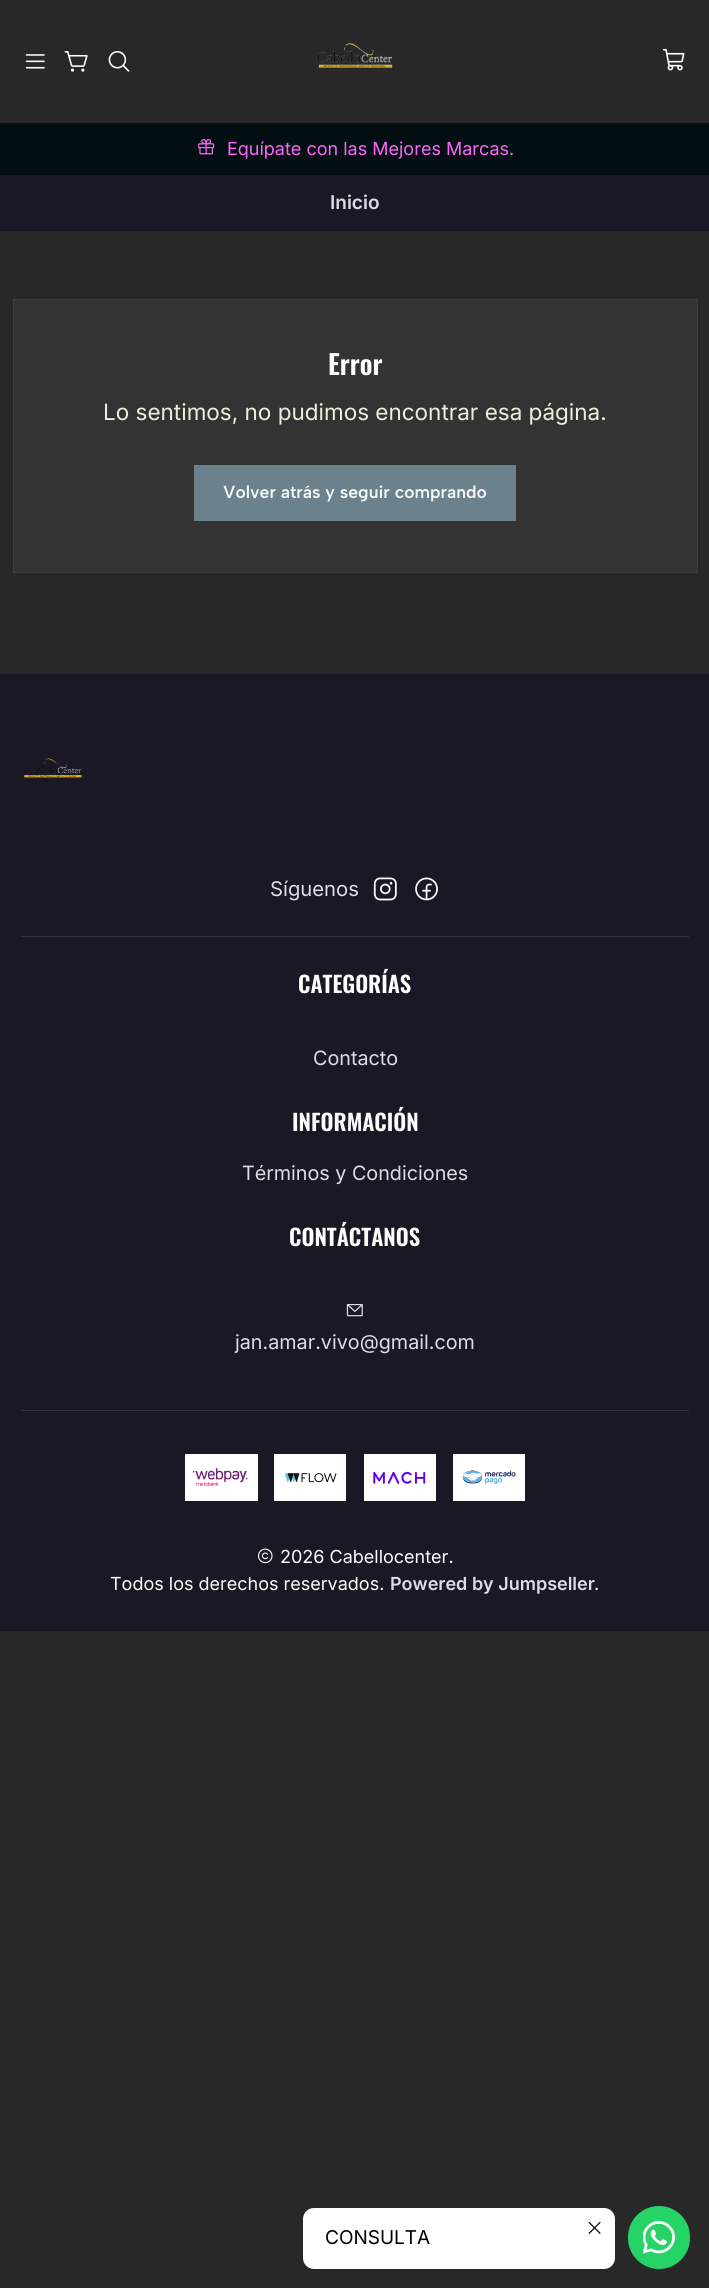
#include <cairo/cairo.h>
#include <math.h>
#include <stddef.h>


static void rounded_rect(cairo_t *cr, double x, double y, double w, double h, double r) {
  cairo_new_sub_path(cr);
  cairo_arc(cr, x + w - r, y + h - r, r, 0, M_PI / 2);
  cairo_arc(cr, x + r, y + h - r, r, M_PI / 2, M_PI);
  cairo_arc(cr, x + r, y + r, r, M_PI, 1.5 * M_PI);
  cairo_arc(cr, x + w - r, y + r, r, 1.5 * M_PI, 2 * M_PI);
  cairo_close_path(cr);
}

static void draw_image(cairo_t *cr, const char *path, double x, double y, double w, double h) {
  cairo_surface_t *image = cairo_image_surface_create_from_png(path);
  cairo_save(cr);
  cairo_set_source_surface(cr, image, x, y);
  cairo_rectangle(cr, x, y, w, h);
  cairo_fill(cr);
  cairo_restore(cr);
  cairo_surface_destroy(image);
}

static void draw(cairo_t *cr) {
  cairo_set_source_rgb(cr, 41 / 255.0, 40 / 255.0, 40 / 255.0);
  cairo_paint(cr);
  draw_image(cr, "images/1.png", 25, 54, 20, 15);
  draw_image(cr, "images/2.png", 64, 51, 24, 21);
  draw_image(cr, "images/3.png", 108, 51, 22, 21);
  draw_image(cr, "images/4.png", 317, 43, 76, 25);
  draw_image(cr, "images/5.png", 662, 48, 23, 23);
  cairo_set_source_rgb(cr, 3 / 255.0, 14 / 255.0, 18 / 255.0);
  cairo_rectangle(cr, 0, 123, 709, 52);
  cairo_fill(cr);
  draw_image(cr, "images/6.png", 198, 138, 17, 17);
  cairo_set_source_rgb(cr, 27 / 255.0, 24 / 255.0, 37 / 255.0);
  cairo_rectangle(cr, 0, 175, 709, 56);
  cairo_fill(cr);
  cairo_set_source_rgb(cr, 52 / 255.0, 51 / 255.0, 51 / 255.0);
  cairo_rectangle(cr, 13.5, 299.5, 684, 273);
  cairo_fill_preserve(cr);
  cairo_set_source_rgb(cr, 62 / 255.0, 61 / 255.0, 61 / 255.0);
  cairo_set_line_width(cr, 1);
  cairo_stroke(cr);
  cairo_set_source_rgb(cr, 107 / 255.0, 129 / 255.0, 140 / 255.0);
  cairo_rectangle(cr, 194, 465, 322, 56);
  cairo_fill(cr);
  cairo_set_source_rgb(cr, 27 / 255.0, 24 / 255.0, 37 / 255.0);
  cairo_rectangle(cr, 0, 674, 709, 957);
  cairo_fill(cr);
  draw_image(cr, "images/7.png", 23, 758, 59, 20);
  draw_image(cr, "images/8.png", 373, 877, 24, 24);
  draw_image(cr, "images/9.png", 415, 877, 23, 24);
  cairo_set_source_rgb(cr, 49 / 255.0, 47 / 255.0, 58 / 255.0);
  cairo_rectangle(cr, 21, 936, 668, 1);
  cairo_fill(cr);
  draw_image(cr, "images/10.png", 346, 1304, 17, 13);
  cairo_rectangle(cr, 21, 1410, 668, 1);
  cairo_fill(cr);
  cairo_set_source_rgb(cr, 1, 1, 1);
  cairo_rectangle(cr, 185, 1454, 73, 47);
  cairo_fill(cr);
  draw_image(cr, "images/11.png", 192, 1468, 56, 18);
  cairo_rectangle(cr, 274, 1454, 72, 47);
  cairo_fill(cr);
  draw_image(cr, "images/12.png", 285, 1473, 52, 10);
  cairo_rectangle(cr, 364, 1454, 72, 47);
  cairo_fill(cr);
  draw_image(cr, "images/13.png", 373, 1471, 53, 13);
  cairo_rectangle(cr, 453, 1454, 72, 47);
  cairo_fill(cr);
  draw_image(cr, "images/14.png", 462, 1470, 54, 14);
  draw_image(cr, "images/15.png", 257, 1548, 16, 16);
  rounded_rect(cr, 303, 2208, 312, 61, 11);
  cairo_fill(cr);
  draw_image(cr, "images/16.png", 588, 2221, 13, 13);
  cairo_set_source_rgb(cr, 37 / 255.0, 211 / 255.0, 102 / 255.0);
  rounded_rect(cr, 628, 2206, 62, 63, 31);
  cairo_fill(cr);
  draw_image(cr, "images/17.png", 643, 2221, 32, 33);
  cairo_select_font_face(cr, "Inter", CAIRO_FONT_SLANT_NORMAL, CAIRO_FONT_WEIGHT_NORMAL);
  cairo_set_font_size(cr, 18);
  cairo_set_source_rgb(cr, 252 / 255.0, 103 / 255.0, 250 / 255.0);
  cairo_move_to(cr, 227, 155);
  cairo_show_text(cr, "Equípate con las Mejores Marcas.");
  cairo_select_font_face(cr, "Inter SemiBold", CAIRO_FONT_SLANT_NORMAL, CAIRO_FONT_WEIGHT_NORMAL);
  cairo_set_font_size(cr, 19);
  cairo_set_source_rgb(cr, 221 / 255.0, 221 / 255.0, 228 / 255.0);
  cairo_move_to(cr, 330, 209);
  cairo_show_text(cr, "Inicio");
  cairo_select_font_face(cr, "Oswald SemiBold", CAIRO_FONT_SLANT_NORMAL, CAIRO_FONT_WEIGHT_NORMAL);
  cairo_set_font_size(cr, 27);
  cairo_set_source_rgb(cr, 253 / 255.0, 253 / 255.0, 253 / 255.0);
  cairo_move_to(cr, 328, 375);
  cairo_show_text(cr, "Error");
  cairo_select_font_face(cr, "Inter", CAIRO_FONT_SLANT_NORMAL, CAIRO_FONT_WEIGHT_NORMAL);
  cairo_set_font_size(cr, 22.5);
  cairo_set_source_rgb(cr, 234 / 255.0, 241 / 255.0, 219 / 255.0);
  cairo_move_to(cr, 103, 420);
  cairo_show_text(cr, "Lo sentimos, no pudimos encontrar esa página.");
  cairo_select_font_face(cr, "Albert Sans SemiBold", CAIRO_FONT_SLANT_NORMAL, CAIRO_FONT_WEIGHT_NORMAL);
  cairo_set_font_size(cr, 17.5);
  cairo_set_source_rgb(cr, 246 / 255.0, 249 / 255.0, 245 / 255.0);
  cairo_move_to(cr, 223, 498);
  cairo_show_text(cr, "Volver atrás y seguir comprando");
  cairo_select_font_face(cr, "Inter", CAIRO_FONT_SLANT_NORMAL, CAIRO_FONT_WEIGHT_NORMAL);
  cairo_set_font_size(cr, 20.25);
  cairo_set_source_rgb(cr, 221 / 255.0, 221 / 255.0, 228 / 255.0);
  cairo_move_to(cr, 270, 896);
  cairo_show_text(cr, "Síguenos");
  cairo_select_font_face(cr, "Oswald SemiBold", CAIRO_FONT_SLANT_NORMAL, CAIRO_FONT_WEIGHT_NORMAL);
  cairo_set_font_size(cr, 22.5);
  cairo_set_source_rgb(cr, 253 / 255.0, 253 / 255.0, 253 / 255.0);
  cairo_move_to(cr, 298, 993);
  cairo_show_text(cr, "CATEGORÍAS");
  cairo_select_font_face(cr, "Inter", CAIRO_FONT_SLANT_NORMAL, CAIRO_FONT_WEIGHT_NORMAL);
  cairo_set_font_size(cr, 19.75);
  cairo_set_source_rgb(cr, 221 / 255.0, 221 / 255.0, 228 / 255.0);
  cairo_move_to(cr, 313, 1065);
  cairo_show_text(cr, "Contacto");
  cairo_select_font_face(cr, "Oswald SemiBold", CAIRO_FONT_SLANT_NORMAL, CAIRO_FONT_WEIGHT_NORMAL);
  cairo_set_font_size(cr, 22.5);
  cairo_set_source_rgb(cr, 253 / 255.0, 253 / 255.0, 253 / 255.0);
  cairo_move_to(cr, 292, 1131);
  cairo_show_text(cr, "INFORMACIÓN");
  cairo_select_font_face(cr, "Inter", CAIRO_FONT_SLANT_NORMAL, CAIRO_FONT_WEIGHT_NORMAL);
  cairo_set_font_size(cr, 19.75);
  cairo_set_source_rgb(cr, 221 / 255.0, 221 / 255.0, 228 / 255.0);
  cairo_move_to(cr, 242, 1180);
  cairo_show_text(cr, "Términos y Condiciones");
  cairo_select_font_face(cr, "Oswald SemiBold", CAIRO_FONT_SLANT_NORMAL, CAIRO_FONT_WEIGHT_NORMAL);
  cairo_set_font_size(cr, 22.5);
  cairo_set_source_rgb(cr, 253 / 255.0, 253 / 255.0, 253 / 255.0);
  cairo_move_to(cr, 289, 1246);
  cairo_show_text(cr, "CONTÁCTANOS");
  cairo_select_font_face(cr, "Inter", CAIRO_FONT_SLANT_NORMAL, CAIRO_FONT_WEIGHT_NORMAL);
  cairo_set_font_size(cr, 19.75);
  cairo_set_source_rgb(cr, 221 / 255.0, 221 / 255.0, 228 / 255.0);
  cairo_move_to(cr, 235, 1349);
  cairo_show_text(cr, "jan.amar.vivo@gmail.com");
  cairo_set_font_size(cr, 18);
  cairo_set_source_rgb(cr, 253 / 255.0, 253 / 255.0, 253 / 255.0);
  cairo_move_to(cr, 280, 1563);
  cairo_show_text(cr, "2026 Cabellocenter.");
  cairo_move_to(cr, 110, 1590);
  cairo_show_text(cr, "Todos los derechos reservados.");
  cairo_select_font_face(cr, "Inter SemiBold", CAIRO_FONT_SLANT_NORMAL, CAIRO_FONT_WEIGHT_NORMAL);
  cairo_set_source_rgb(cr, 221 / 255.0, 221 / 255.0, 228 / 255.0);
  cairo_move_to(cr, 390, 1590);
  cairo_show_text(cr, "Powered by Jumpseller");
  cairo_select_font_face(cr, "Inter", CAIRO_FONT_SLANT_NORMAL, CAIRO_FONT_WEIGHT_NORMAL);
  cairo_set_source_rgb(cr, 253 / 255.0, 253 / 255.0, 253 / 255.0);
  cairo_move_to(cr, 594, 1590);
  cairo_show_text(cr, ".");
  cairo_set_font_size(cr, 19);
  cairo_set_source_rgb(cr, 0, 0, 0);
  cairo_move_to(cr, 325, 2244);
  cairo_show_text(cr, "CONSULTA");
}

int main(void) {
  cairo_surface_t *surface = cairo_image_surface_create(CAIRO_FORMAT_RGB24, 709, 2288);
  cairo_t *cr = cairo_create(surface);
  cairo_font_options_t *options = cairo_font_options_create();
  cairo_font_options_set_hint_metrics(options, CAIRO_HINT_METRICS_OFF);
  cairo_font_options_set_hint_style(options, CAIRO_HINT_STYLE_NONE);
  cairo_set_font_options(cr, options);
  cairo_set_miter_limit(cr, 4);
  draw(cr);
  cairo_surface_write_to_png(surface, "out.png");
  cairo_font_options_destroy(options);
  cairo_destroy(cr);
  cairo_surface_destroy(surface);
  return 0;
}
